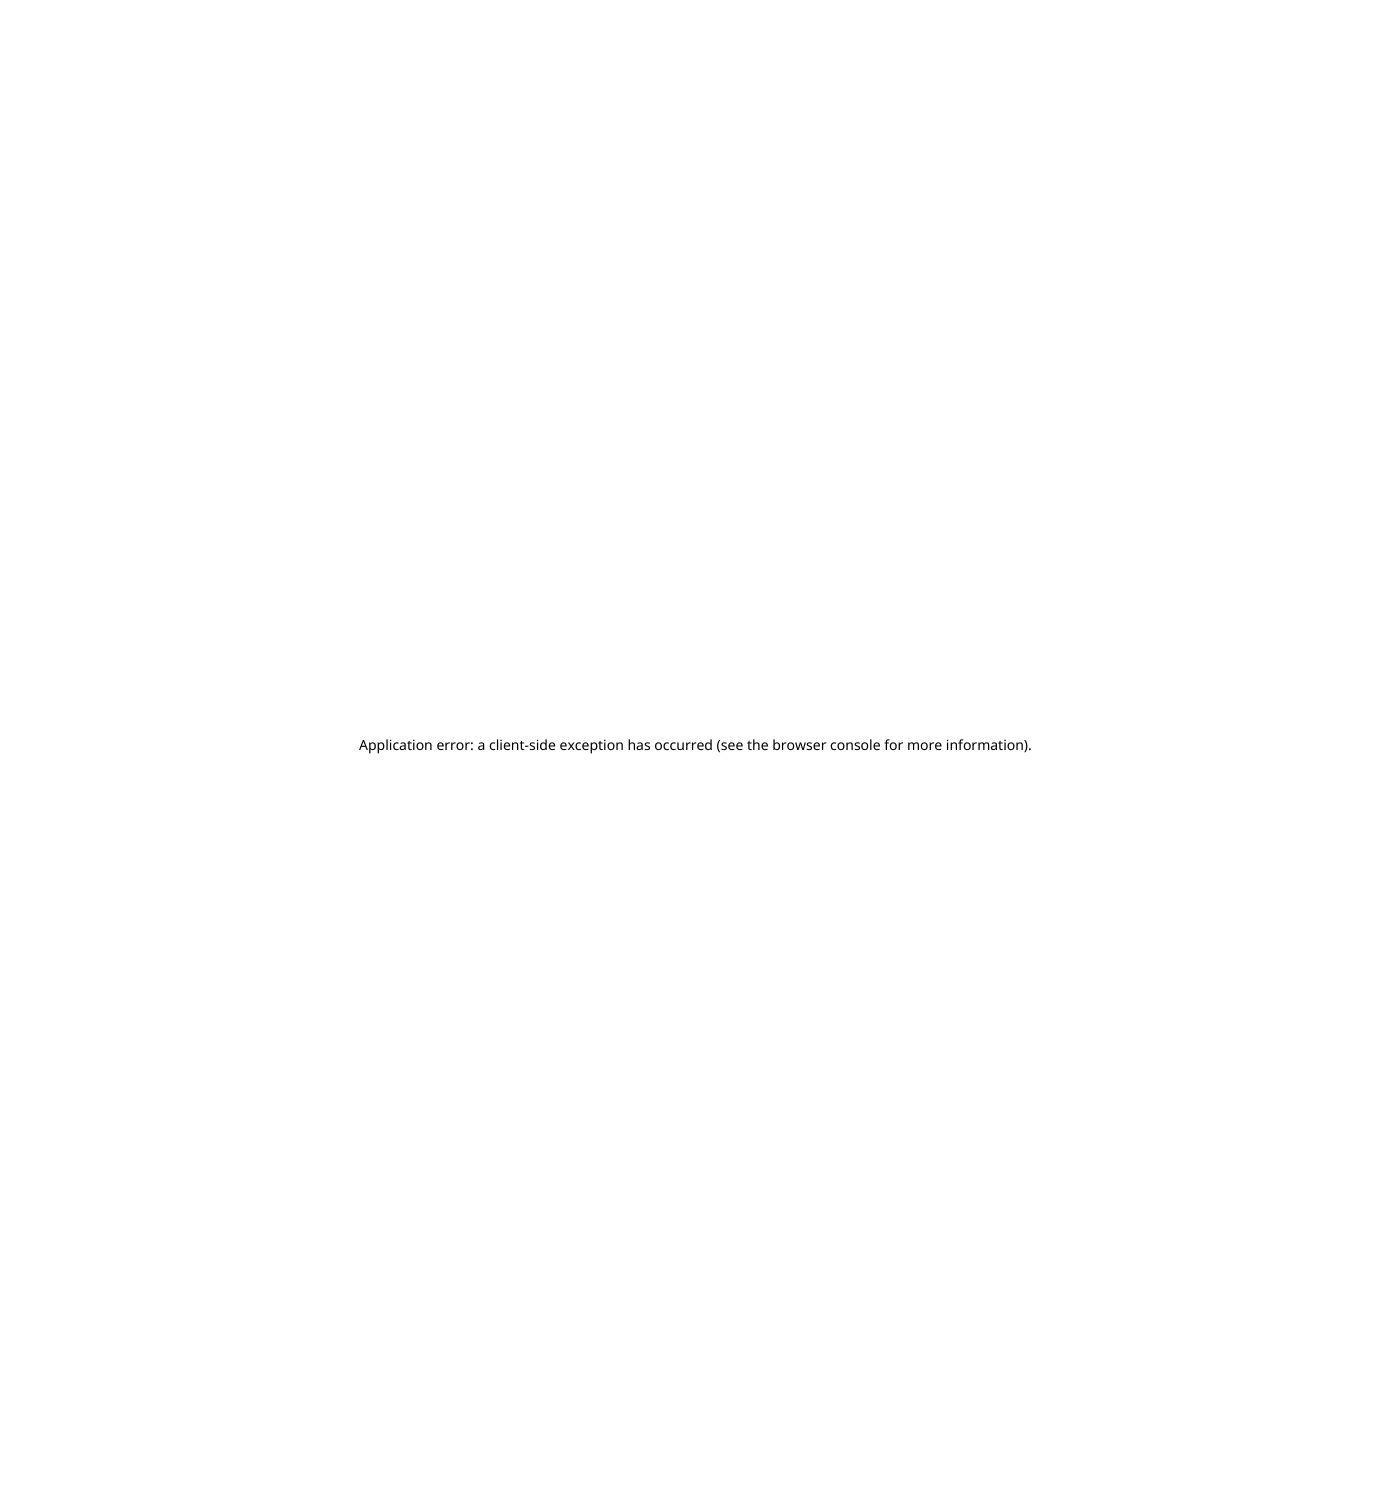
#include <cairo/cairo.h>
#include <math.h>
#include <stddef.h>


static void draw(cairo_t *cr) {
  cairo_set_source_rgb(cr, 1, 1, 1);
  cairo_paint(cr);
  cairo_select_font_face(cr, "Noto Sans", CAIRO_FONT_SLANT_NORMAL, CAIRO_FONT_WEIGHT_NORMAL);
  cairo_set_font_size(cr, 14);
  cairo_set_source_rgb(cr, 0, 0, 0);
  cairo_move_to(cr, 359, 750);
  cairo_show_text(cr, "Application error: a client-side exception has occurred (see the browser console for more information).");
}

int main(void) {
  cairo_surface_t *surface = cairo_image_surface_create(CAIRO_FORMAT_RGB24, 1391, 1487);
  cairo_t *cr = cairo_create(surface);
  cairo_font_options_t *options = cairo_font_options_create();
  cairo_font_options_set_hint_metrics(options, CAIRO_HINT_METRICS_OFF);
  cairo_font_options_set_hint_style(options, CAIRO_HINT_STYLE_NONE);
  cairo_set_font_options(cr, options);
  cairo_set_miter_limit(cr, 4);
  draw(cr);
  cairo_surface_write_to_png(surface, "out.png");
  cairo_font_options_destroy(options);
  cairo_destroy(cr);
  cairo_surface_destroy(surface);
  return 0;
}
